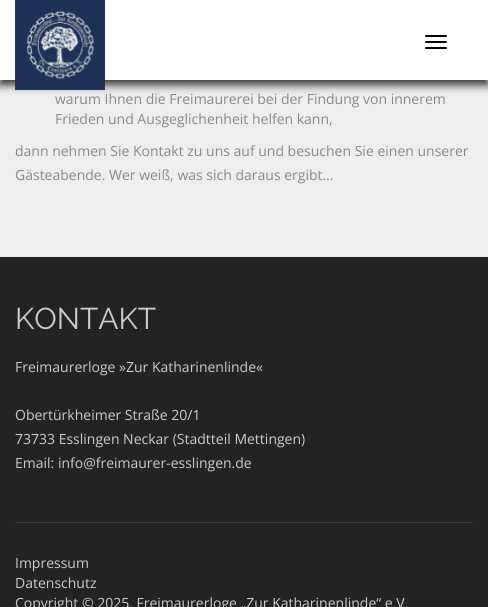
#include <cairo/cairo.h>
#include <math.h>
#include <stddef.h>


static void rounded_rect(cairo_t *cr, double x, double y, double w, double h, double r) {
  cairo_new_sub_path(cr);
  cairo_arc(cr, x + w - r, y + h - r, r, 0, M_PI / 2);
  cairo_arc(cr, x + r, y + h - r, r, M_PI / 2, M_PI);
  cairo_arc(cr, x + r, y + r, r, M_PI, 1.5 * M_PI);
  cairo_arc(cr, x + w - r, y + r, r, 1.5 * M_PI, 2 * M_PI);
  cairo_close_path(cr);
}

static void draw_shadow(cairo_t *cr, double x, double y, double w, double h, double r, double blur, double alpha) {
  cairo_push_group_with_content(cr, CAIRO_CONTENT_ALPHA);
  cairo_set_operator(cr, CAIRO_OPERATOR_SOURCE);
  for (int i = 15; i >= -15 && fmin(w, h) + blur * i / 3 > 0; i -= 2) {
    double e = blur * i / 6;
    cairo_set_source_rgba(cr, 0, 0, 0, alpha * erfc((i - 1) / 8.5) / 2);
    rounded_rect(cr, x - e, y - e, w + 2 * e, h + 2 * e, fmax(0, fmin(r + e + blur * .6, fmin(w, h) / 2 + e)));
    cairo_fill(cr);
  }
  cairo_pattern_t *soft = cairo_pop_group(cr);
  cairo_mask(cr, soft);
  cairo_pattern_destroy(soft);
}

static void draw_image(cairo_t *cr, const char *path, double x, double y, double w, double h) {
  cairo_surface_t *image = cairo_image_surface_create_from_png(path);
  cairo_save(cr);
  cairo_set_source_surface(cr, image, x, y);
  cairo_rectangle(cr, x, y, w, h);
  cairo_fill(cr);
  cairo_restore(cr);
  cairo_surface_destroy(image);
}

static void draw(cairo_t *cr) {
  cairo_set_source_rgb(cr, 238 / 255.0, 238 / 255.0, 238 / 255.0);
  cairo_paint(cr);
  cairo_set_source_rgb(cr, 51 / 255.0, 51 / 255.0, 51 / 255.0);
  draw_shadow(cr, 0, 5, 488, 80, 0, 4.5, 1);
  cairo_set_source_rgb(cr, 1, 1, 1);
  cairo_rectangle(cr, 0, 0, 488, 80);
  cairo_fill(cr);
  cairo_set_source_rgb(cr, 31 / 255.0, 49 / 255.0, 86 / 255.0);
  cairo_rectangle(cr, 15, 0, 90, 90);
  cairo_fill(cr);
  draw_image(cr, "images/1.png", 26, 11, 68, 68);
  cairo_set_source_rgb(cr, 0, 0, 0);
  rounded_rect(cr, 425, 35, 22, 2, 1);
  cairo_fill(cr);
  rounded_rect(cr, 425, 41, 22, 2, 1);
  cairo_fill(cr);
  rounded_rect(cr, 425, 47, 22, 2, 1);
  cairo_fill(cr);
  cairo_set_source_rgb(cr, 35 / 255.0, 35 / 255.0, 35 / 255.0);
  cairo_rectangle(cr, 0, 257, 488, 350);
  cairo_fill(cr);
  cairo_set_source_rgb(cr, 60 / 255.0, 58 / 255.0, 58 / 255.0);
  cairo_rectangle(cr, 15, 522, 458, 1);
  cairo_fill(cr);
  cairo_select_font_face(cr, "Open Sans", CAIRO_FONT_SLANT_NORMAL, CAIRO_FONT_WEIGHT_NORMAL);
  cairo_set_font_size(cr, 14);
  cairo_set_source_rgb(cr, 136 / 255.0, 136 / 255.0, 136 / 255.0);
  cairo_move_to(cr, 55, 104);
  cairo_show_text(cr, "warum Ihnen die Freimaurerei bei der Findung von innerem");
  cairo_move_to(cr, 55, 124);
  cairo_show_text(cr, "Frieden und Ausgeglichenheit helfen kann,");
  cairo_move_to(cr, 15, 156);
  cairo_show_text(cr, "dann nehmen Sie Kontakt zu uns auf und besuchen Sie einen unserer");
  cairo_move_to(cr, 15, 180);
  cairo_show_text(cr, "Gästeabende. Wer weiß, was sich daraus ergibt…");
  cairo_select_font_face(cr, "Raleway", CAIRO_FONT_SLANT_NORMAL, CAIRO_FONT_WEIGHT_NORMAL);
  cairo_set_font_size(cr, 30);
  cairo_set_source_rgb(cr, 204 / 255.0, 204 / 255.0, 204 / 255.0);
  cairo_move_to(cr, 15, 329);
  cairo_show_text(cr, "KONTAKT");
  cairo_select_font_face(cr, "Open Sans", CAIRO_FONT_SLANT_NORMAL, CAIRO_FONT_WEIGHT_NORMAL);
  cairo_set_font_size(cr, 14);
  cairo_move_to(cr, 15, 372);
  cairo_show_text(cr, "Freimaurerloge »Zur Katharinenlinde«");
  cairo_move_to(cr, 15, 420);
  cairo_show_text(cr, "Obertürkheimer Straße 20/1");
  cairo_move_to(cr, 15, 444);
  cairo_show_text(cr, "73733 Esslingen Neckar (Stadtteil Mettingen)");
  cairo_move_to(cr, 15, 468);
  cairo_show_text(cr, "Email: info@freimaurer-esslingen.de");
  cairo_move_to(cr, 15, 568);
  cairo_show_text(cr, "Impressum");
  cairo_move_to(cr, 15, 588);
  cairo_show_text(cr, "Datenschutz");
  cairo_move_to(cr, 15, 608);
  cairo_show_text(cr, "Copyright © 2025, Freimaurerloge „Zur Katharinenlinde“ e.V.");
}

int main(void) {
  cairo_surface_t *surface = cairo_image_surface_create(CAIRO_FORMAT_RGB24, 488, 607);
  cairo_t *cr = cairo_create(surface);
  cairo_font_options_t *options = cairo_font_options_create();
  cairo_font_options_set_hint_metrics(options, CAIRO_HINT_METRICS_OFF);
  cairo_font_options_set_hint_style(options, CAIRO_HINT_STYLE_NONE);
  cairo_set_font_options(cr, options);
  cairo_set_miter_limit(cr, 4);
  draw(cr);
  cairo_surface_write_to_png(surface, "out.png");
  cairo_font_options_destroy(options);
  cairo_destroy(cr);
  cairo_surface_destroy(surface);
  return 0;
}
